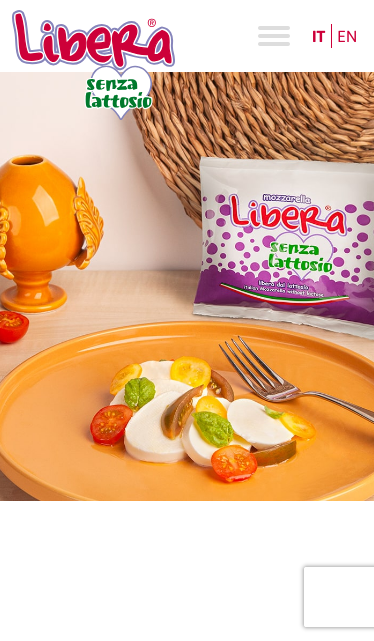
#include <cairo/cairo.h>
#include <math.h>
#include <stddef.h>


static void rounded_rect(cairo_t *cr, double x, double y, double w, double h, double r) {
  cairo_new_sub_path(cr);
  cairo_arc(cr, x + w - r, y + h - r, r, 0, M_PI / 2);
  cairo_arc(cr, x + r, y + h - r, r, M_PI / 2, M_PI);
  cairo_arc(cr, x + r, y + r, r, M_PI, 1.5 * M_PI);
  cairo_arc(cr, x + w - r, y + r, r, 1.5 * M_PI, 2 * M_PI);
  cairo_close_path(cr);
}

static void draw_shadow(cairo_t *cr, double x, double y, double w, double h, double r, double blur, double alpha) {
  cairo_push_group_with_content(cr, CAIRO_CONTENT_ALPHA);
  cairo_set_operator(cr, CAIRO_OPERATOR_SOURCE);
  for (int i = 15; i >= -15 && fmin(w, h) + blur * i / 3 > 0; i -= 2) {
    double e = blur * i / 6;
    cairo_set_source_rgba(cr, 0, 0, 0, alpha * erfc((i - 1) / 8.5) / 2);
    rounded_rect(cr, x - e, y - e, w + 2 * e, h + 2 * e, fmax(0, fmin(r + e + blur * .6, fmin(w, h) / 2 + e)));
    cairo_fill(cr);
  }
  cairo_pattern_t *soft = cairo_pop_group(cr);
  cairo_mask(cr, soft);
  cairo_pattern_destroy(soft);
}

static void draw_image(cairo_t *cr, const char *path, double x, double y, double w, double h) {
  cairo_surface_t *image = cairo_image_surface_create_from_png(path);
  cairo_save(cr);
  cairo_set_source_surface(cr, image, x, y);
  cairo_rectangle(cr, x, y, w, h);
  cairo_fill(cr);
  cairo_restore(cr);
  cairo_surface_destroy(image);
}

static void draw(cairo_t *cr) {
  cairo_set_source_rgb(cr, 1, 1, 1);
  cairo_paint(cr);
  draw_image(cr, "images/2.png", 0, 72, 374, 429);
  draw_image(cr, "images/1.png", 12, 10, 163, 110);
  cairo_set_source_rgb(cr, 221 / 255.0, 221 / 255.0, 221 / 255.0);
  rounded_rect(cr, 258, 26, 32, 4, 2);
  cairo_fill(cr);
  rounded_rect(cr, 258, 34, 32, 4, 2);
  cairo_fill(cr);
  rounded_rect(cr, 258, 42, 32, 4, 2);
  cairo_fill(cr);
  cairo_set_source_rgb(cr, 205 / 255.0, 0, 57 / 255.0);
  cairo_rectangle(cr, 331, 24, 1, 24);
  cairo_fill(cr);
  cairo_save(cr);
  cairo_set_fill_rule(cr, CAIRO_FILL_RULE_EVEN_ODD);
  cairo_new_path(cr);
  cairo_move_to(cr, 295, 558);
  cairo_line_to(cr, 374, 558);
  cairo_line_to(cr, 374, 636);
  cairo_line_to(cr, 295, 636);
  cairo_close_path(cr);
  cairo_move_to(cr, 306, 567);
  cairo_line_to(cr, 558, 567);
  cairo_curve_to(cr, 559, 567, 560, 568, 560, 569);
  cairo_line_to(cr, 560, 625);
  cairo_curve_to(cr, 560, 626, 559, 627, 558, 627);
  cairo_line_to(cr, 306, 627);
  cairo_curve_to(cr, 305, 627, 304, 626, 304, 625);
  cairo_line_to(cr, 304, 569);
  cairo_curve_to(cr, 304, 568, 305, 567, 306, 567);
  cairo_close_path(cr);
  cairo_clip(cr);
  cairo_set_source_rgb(cr, 128 / 255.0, 128 / 255.0, 128 / 255.0);
  draw_shadow(cr, 304, 567, 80, 60, 2, 2.5, 1);
  cairo_restore(cr);
  cairo_select_font_face(cr, "Asap", CAIRO_FONT_SLANT_NORMAL, CAIRO_FONT_WEIGHT_BOLD);
  cairo_set_font_size(cr, 16);
  cairo_move_to(cr, 312, 42);
  cairo_show_text(cr, "IT");
  cairo_select_font_face(cr, "Asap", CAIRO_FONT_SLANT_NORMAL, CAIRO_FONT_WEIGHT_NORMAL);
  cairo_move_to(cr, 337, 42);
  cairo_show_text(cr, "EN");
}

int main(void) {
  cairo_surface_t *surface = cairo_image_surface_create(CAIRO_FORMAT_RGB24, 374, 641);
  cairo_t *cr = cairo_create(surface);
  cairo_font_options_t *options = cairo_font_options_create();
  cairo_font_options_set_hint_metrics(options, CAIRO_HINT_METRICS_OFF);
  cairo_font_options_set_hint_style(options, CAIRO_HINT_STYLE_NONE);
  cairo_set_font_options(cr, options);
  cairo_set_miter_limit(cr, 4);
  draw(cr);
  cairo_surface_write_to_png(surface, "out.png");
  cairo_font_options_destroy(options);
  cairo_destroy(cr);
  cairo_surface_destroy(surface);
  return 0;
}
